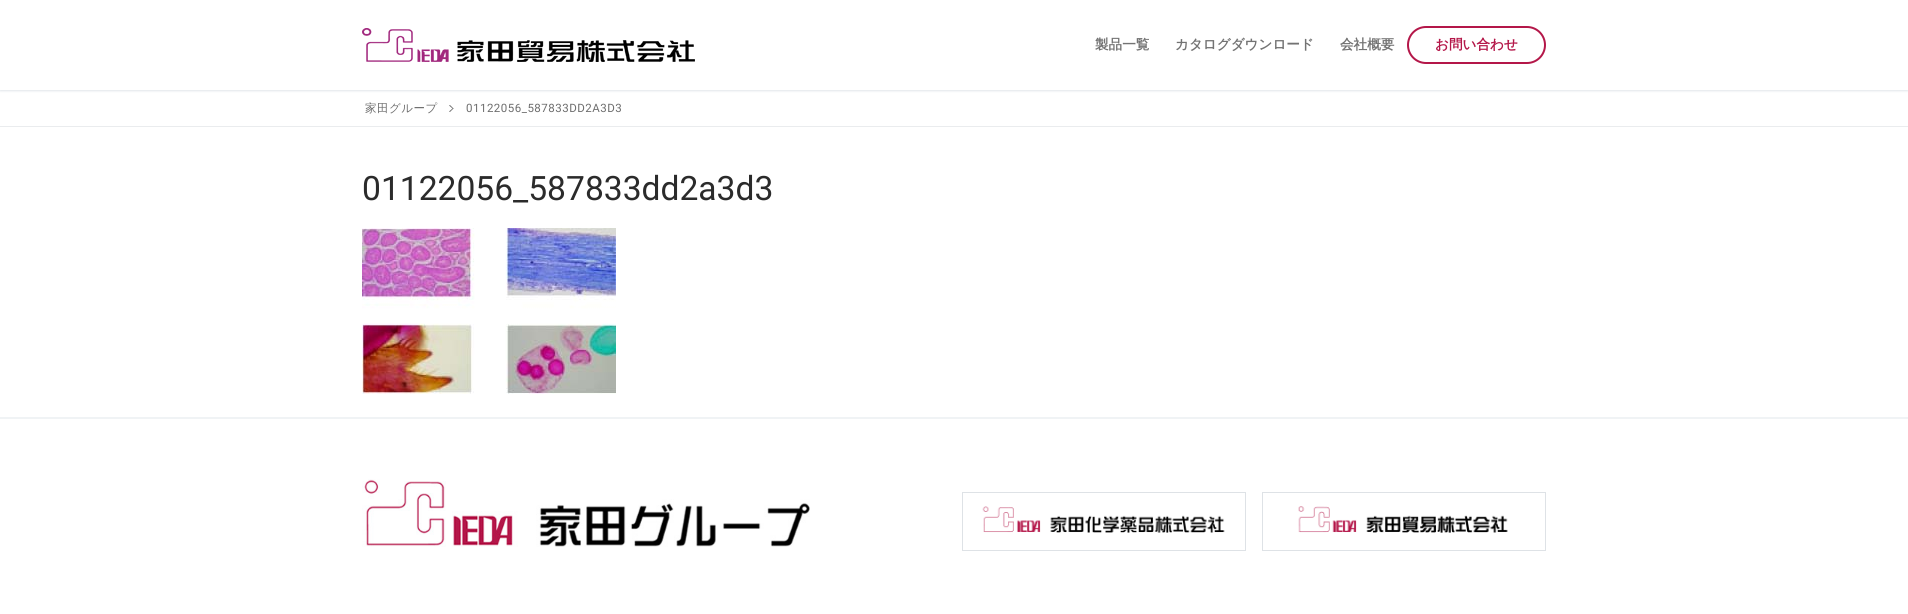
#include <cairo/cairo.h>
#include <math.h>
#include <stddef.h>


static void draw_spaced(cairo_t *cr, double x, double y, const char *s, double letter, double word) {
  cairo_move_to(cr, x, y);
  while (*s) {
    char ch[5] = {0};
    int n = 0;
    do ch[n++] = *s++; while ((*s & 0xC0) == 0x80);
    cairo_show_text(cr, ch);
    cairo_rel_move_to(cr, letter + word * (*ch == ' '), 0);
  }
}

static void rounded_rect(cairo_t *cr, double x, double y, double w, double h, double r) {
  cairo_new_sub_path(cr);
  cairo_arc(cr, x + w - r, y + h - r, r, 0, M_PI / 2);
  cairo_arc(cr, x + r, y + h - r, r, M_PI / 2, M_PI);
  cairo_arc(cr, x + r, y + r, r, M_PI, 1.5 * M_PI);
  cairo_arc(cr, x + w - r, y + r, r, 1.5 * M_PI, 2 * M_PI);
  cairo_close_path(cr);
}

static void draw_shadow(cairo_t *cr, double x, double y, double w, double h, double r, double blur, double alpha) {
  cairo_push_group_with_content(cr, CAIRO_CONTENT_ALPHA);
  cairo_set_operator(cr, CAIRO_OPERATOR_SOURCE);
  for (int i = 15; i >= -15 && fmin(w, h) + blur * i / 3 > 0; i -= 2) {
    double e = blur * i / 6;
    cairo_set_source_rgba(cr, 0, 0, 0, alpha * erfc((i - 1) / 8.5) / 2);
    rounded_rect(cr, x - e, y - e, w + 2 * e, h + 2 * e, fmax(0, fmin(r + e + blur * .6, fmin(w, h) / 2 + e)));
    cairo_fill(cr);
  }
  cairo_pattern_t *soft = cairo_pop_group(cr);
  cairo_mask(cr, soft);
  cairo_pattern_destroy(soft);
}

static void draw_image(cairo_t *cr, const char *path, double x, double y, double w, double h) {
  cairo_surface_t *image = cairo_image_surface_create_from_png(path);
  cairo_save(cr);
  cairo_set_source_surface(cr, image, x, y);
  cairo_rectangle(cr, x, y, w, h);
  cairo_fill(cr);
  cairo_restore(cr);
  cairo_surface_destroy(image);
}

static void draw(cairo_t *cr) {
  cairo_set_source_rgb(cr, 1, 1, 1);
  cairo_paint(cr);
  cairo_save(cr);
  cairo_rectangle(cr, 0, 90, 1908, 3);
  cairo_clip(cr);
  cairo_set_source_rgb(cr, 225 / 255.0, 229 / 255.0, 234 / 255.0);
  draw_shadow(cr, 0, 1, 1908, 90, 0, 1, 1);
  cairo_restore(cr);
  draw_image(cr, "images/1.png", 362, 28, 333, 34);
  rounded_rect(cr, 1408, 27, 137, 36, 18);
  cairo_set_source_rgb(cr, 180 / 255.0, 23 / 255.0, 73 / 255.0);
  cairo_stroke(cr);
  cairo_set_source_rgb(cr, 234 / 255.0, 236 / 255.0, 238 / 255.0);
  cairo_rectangle(cr, 0, 126, 1908, 1);
  cairo_fill(cr);
  cairo_set_source_rgb(cr, 109 / 255.0, 109 / 255.0, 109 / 255.0);
  cairo_new_path(cr);
  cairo_move_to(cr, 453.5, 108.5);
  cairo_line_to(cr, 450, 112);
  cairo_line_to(cr, 449, 111.5);
  cairo_line_to(cr, 453, 108);
  cairo_close_path(cr);
  cairo_fill(cr);
  cairo_new_path(cr);
  cairo_move_to(cr, 453.5, 108.5);
  cairo_line_to(cr, 453, 109);
  cairo_line_to(cr, 449, 105.5);
  cairo_line_to(cr, 450, 105);
  cairo_close_path(cr);
  cairo_fill(cr);
  draw_image(cr, "images/2.png", 362, 228, 254, 166);
  cairo_set_source_rgb(cr, 240 / 255.0, 243 / 255.0, 245 / 255.0);
  cairo_rectangle(cr, 0, 417, 1908, 2);
  cairo_fill(cr);
  draw_image(cr, "images/3.png", 362, 479, 448, 68);
  cairo_rectangle(cr, 962.5, 492.5, 283, 58);
  cairo_set_source_rgb(cr, 222 / 255.0, 226 / 255.0, 230 / 255.0);
  cairo_set_line_width(cr, 1);
  cairo_stroke(cr);
  draw_image(cr, "images/4.png", 982, 506, 243, 27);
  cairo_rectangle(cr, 1262.5, 492.5, 283, 58);
  cairo_stroke(cr);
  draw_image(cr, "images/5.png", 1298, 506, 210, 27);
  cairo_select_font_face(cr, "WenQuanYi Zen Hei", CAIRO_FONT_SLANT_NORMAL, CAIRO_FONT_WEIGHT_BOLD);
  cairo_set_font_size(cr, 13.6);
  cairo_set_source_rgb(cr, 115 / 255.0, 115 / 255.0, 115 / 255.0);
  cairo_move_to(cr, 1095, 49);
  cairo_show_text(cr, "製品一覧");
  cairo_move_to(cr, 1175, 49);
  cairo_show_text(cr, "カタログダウンロード");
  cairo_move_to(cr, 1340, 49);
  cairo_show_text(cr, "会社概要");
  cairo_set_source_rgb(cr, 180 / 255.0, 23 / 255.0, 73 / 255.0);
  cairo_move_to(cr, 1435, 49);
  cairo_show_text(cr, "お問い合わせ");
  cairo_select_font_face(cr, "WenQuanYi Zen Hei Medium", CAIRO_FONT_SLANT_NORMAL, CAIRO_FONT_WEIGHT_NORMAL);
  cairo_set_font_size(cr, 11.5);
  cairo_set_source_rgb(cr, 109 / 255.0, 109 / 255.0, 109 / 255.0);
  draw_spaced(cr, 365, 112, "家田グループ", 0.5, 0);
  cairo_select_font_face(cr, "Roboto", CAIRO_FONT_SLANT_NORMAL, CAIRO_FONT_WEIGHT_NORMAL);
  draw_spaced(cr, 466, 112, "01122056_587833DD2A3D3", 0.5, 0);
  cairo_set_font_size(cr, 33.6);
  cairo_set_source_rgb(cr, 43 / 255.0, 43 / 255.0, 43 / 255.0);
  cairo_move_to(cr, 362, 200);
  cairo_show_text(cr, "01122056_587833dd2a3d3");
}

int main(void) {
  cairo_surface_t *surface = cairo_image_surface_create(CAIRO_FORMAT_RGB24, 1908, 614);
  cairo_t *cr = cairo_create(surface);
  cairo_font_options_t *options = cairo_font_options_create();
  cairo_font_options_set_hint_metrics(options, CAIRO_HINT_METRICS_OFF);
  cairo_font_options_set_hint_style(options, CAIRO_HINT_STYLE_NONE);
  cairo_set_font_options(cr, options);
  cairo_set_miter_limit(cr, 4);
  draw(cr);
  cairo_surface_write_to_png(surface, "out.png");
  cairo_font_options_destroy(options);
  cairo_destroy(cr);
  cairo_surface_destroy(surface);
  return 0;
}
